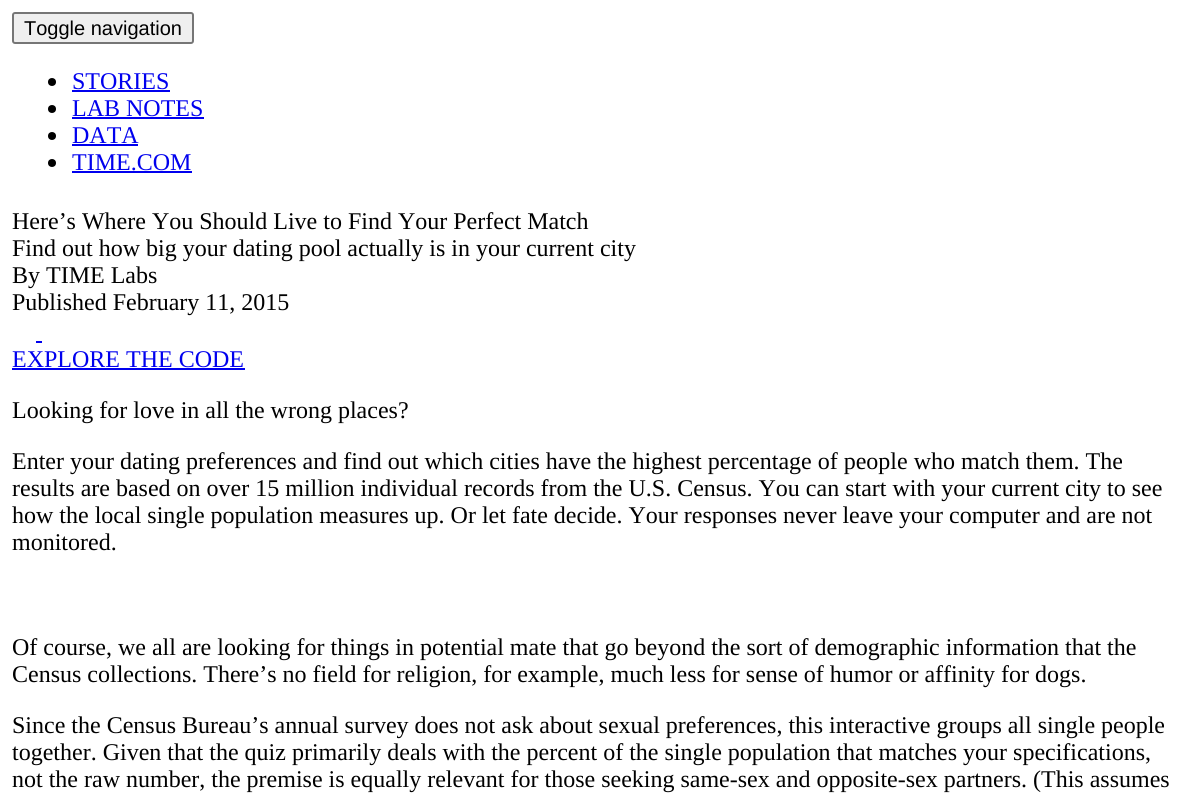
#include <cairo/cairo.h>
#include <math.h>
#include <stddef.h>


static void rounded_rect(cairo_t *cr, double x, double y, double w, double h, double r) {
  cairo_new_sub_path(cr);
  cairo_arc(cr, x + w - r, y + h - r, r, 0, M_PI / 2);
  cairo_arc(cr, x + r, y + h - r, r, M_PI / 2, M_PI);
  cairo_arc(cr, x + r, y + r, r, M_PI, 1.5 * M_PI);
  cairo_arc(cr, x + w - r, y + r, r, 1.5 * M_PI, 2 * M_PI);
  cairo_close_path(cr);
}

static void draw(cairo_t *cr) {
  cairo_set_source_rgb(cr, 1, 1, 1);
  cairo_paint(cr);
  cairo_set_source_rgb(cr, 239 / 255.0, 239 / 255.0, 239 / 255.0);
  rounded_rect(cr, 13, 13, 180, 30, 2);
  cairo_fill_preserve(cr);
  cairo_set_source_rgb(cr, 118 / 255.0, 118 / 255.0, 118 / 255.0);
  cairo_stroke(cr);
  cairo_set_source_rgb(cr, 0, 0, 0);
  cairo_arc(cr, 52, 82, 4, 0, 2 * M_PI);
  cairo_fill(cr);
  cairo_set_source_rgb(cr, 0, 0, 238 / 255.0);
  cairo_rectangle(cr, 72, 90, 98, 2);
  cairo_fill(cr);
  cairo_set_source_rgb(cr, 0, 0, 0);
  cairo_arc(cr, 52, 109, 4, 0, 2 * M_PI);
  cairo_fill(cr);
  cairo_set_source_rgb(cr, 0, 0, 238 / 255.0);
  cairo_rectangle(cr, 72, 117, 132, 2);
  cairo_fill(cr);
  cairo_set_source_rgb(cr, 0, 0, 0);
  cairo_arc(cr, 52, 136, 4, 0, 2 * M_PI);
  cairo_fill(cr);
  cairo_set_source_rgb(cr, 0, 0, 238 / 255.0);
  cairo_rectangle(cr, 72, 144, 66, 2);
  cairo_fill(cr);
  cairo_set_source_rgb(cr, 0, 0, 0);
  cairo_arc(cr, 52, 163, 4, 0, 2 * M_PI);
  cairo_fill(cr);
  cairo_set_source_rgb(cr, 0, 0, 238 / 255.0);
  cairo_rectangle(cr, 72, 171, 120, 2);
  cairo_fill(cr);
  cairo_rectangle(cr, 36, 341, 6, 2);
  cairo_fill(cr);
  cairo_rectangle(cr, 12, 368, 233, 2);
  cairo_fill(cr);
  cairo_select_font_face(cr, "Liberation Sans", CAIRO_FONT_SLANT_NORMAL, CAIRO_FONT_WEIGHT_NORMAL);
  cairo_set_font_size(cr, 20);
  cairo_set_source_rgb(cr, 0, 0, 0);
  cairo_move_to(cr, 24, 35);
  cairo_show_text(cr, "Toggle navigation");
  cairo_select_font_face(cr, "Liberation Serif", CAIRO_FONT_SLANT_NORMAL, CAIRO_FONT_WEIGHT_NORMAL);
  cairo_set_font_size(cr, 24);
  cairo_set_source_rgb(cr, 0, 0, 238 / 255.0);
  cairo_move_to(cr, 72, 89);
  cairo_show_text(cr, "STORIES");
  cairo_move_to(cr, 72, 116);
  cairo_show_text(cr, "LAB NOTES");
  cairo_move_to(cr, 72, 143);
  cairo_show_text(cr, "DATA");
  cairo_move_to(cr, 72, 170);
  cairo_show_text(cr, "TIME.COM");
  cairo_set_source_rgb(cr, 0, 0, 0);
  cairo_move_to(cr, 12, 229);
  cairo_show_text(cr, "Here’s Where You Should Live to Find Your Perfect Match");
  cairo_move_to(cr, 12, 256);
  cairo_show_text(cr, "Find out how big your dating pool actually is in your current city");
  cairo_move_to(cr, 12, 283);
  cairo_show_text(cr, "By TIME Labs");
  cairo_move_to(cr, 12, 310);
  cairo_show_text(cr, "Published February 11, 2015");
  cairo_set_source_rgb(cr, 0, 0, 238 / 255.0);
  cairo_move_to(cr, 12, 367);
  cairo_show_text(cr, "EXPLORE THE CODE");
  cairo_set_source_rgb(cr, 0, 0, 0);
  cairo_move_to(cr, 12, 418);
  cairo_show_text(cr, "Looking for love in all the wrong places?");
  cairo_move_to(cr, 12, 469);
  cairo_show_text(cr, "Enter your dating preferences and find out which cities have the highest percentage of people who match them. The");
  cairo_move_to(cr, 12, 496);
  cairo_show_text(cr, "results are based on over 15 million individual records from the U.S. Census. You can start with your current city to see");
  cairo_move_to(cr, 12, 523);
  cairo_show_text(cr, "how the local single population measures up. Or let fate decide. Your responses never leave your computer and are not");
  cairo_move_to(cr, 12, 550);
  cairo_show_text(cr, "monitored.");
  cairo_move_to(cr, 12, 655);
  cairo_show_text(cr, "Of course, we all are looking for things in potential mate that go beyond the sort of demographic information that the");
  cairo_move_to(cr, 12, 682);
  cairo_show_text(cr, "Census collections. There’s no field for religion, for example, much less for sense of humor or affinity for dogs.");
  cairo_move_to(cr, 12, 733);
  cairo_show_text(cr, "Since the Census Bureau’s annual survey does not ask about sexual preferences, this interactive groups all single people");
  cairo_move_to(cr, 12, 760);
  cairo_show_text(cr, "together. Given that the quiz primarily deals with the percent of the single population that matches your specifications,");
  cairo_move_to(cr, 12, 787);
  cairo_show_text(cr, "not the raw number, the premise is equally relevant for those seeking same-sex and opposite-sex partners. (This assumes");
}

int main(void) {
  cairo_surface_t *surface = cairo_image_surface_create(CAIRO_FORMAT_RGB24, 1187, 803);
  cairo_t *cr = cairo_create(surface);
  cairo_font_options_t *options = cairo_font_options_create();
  cairo_font_options_set_hint_metrics(options, CAIRO_HINT_METRICS_OFF);
  cairo_font_options_set_hint_style(options, CAIRO_HINT_STYLE_NONE);
  cairo_set_font_options(cr, options);
  cairo_set_miter_limit(cr, 4);
  draw(cr);
  cairo_surface_write_to_png(surface, "out.png");
  cairo_font_options_destroy(options);
  cairo_destroy(cr);
  cairo_surface_destroy(surface);
  return 0;
}
